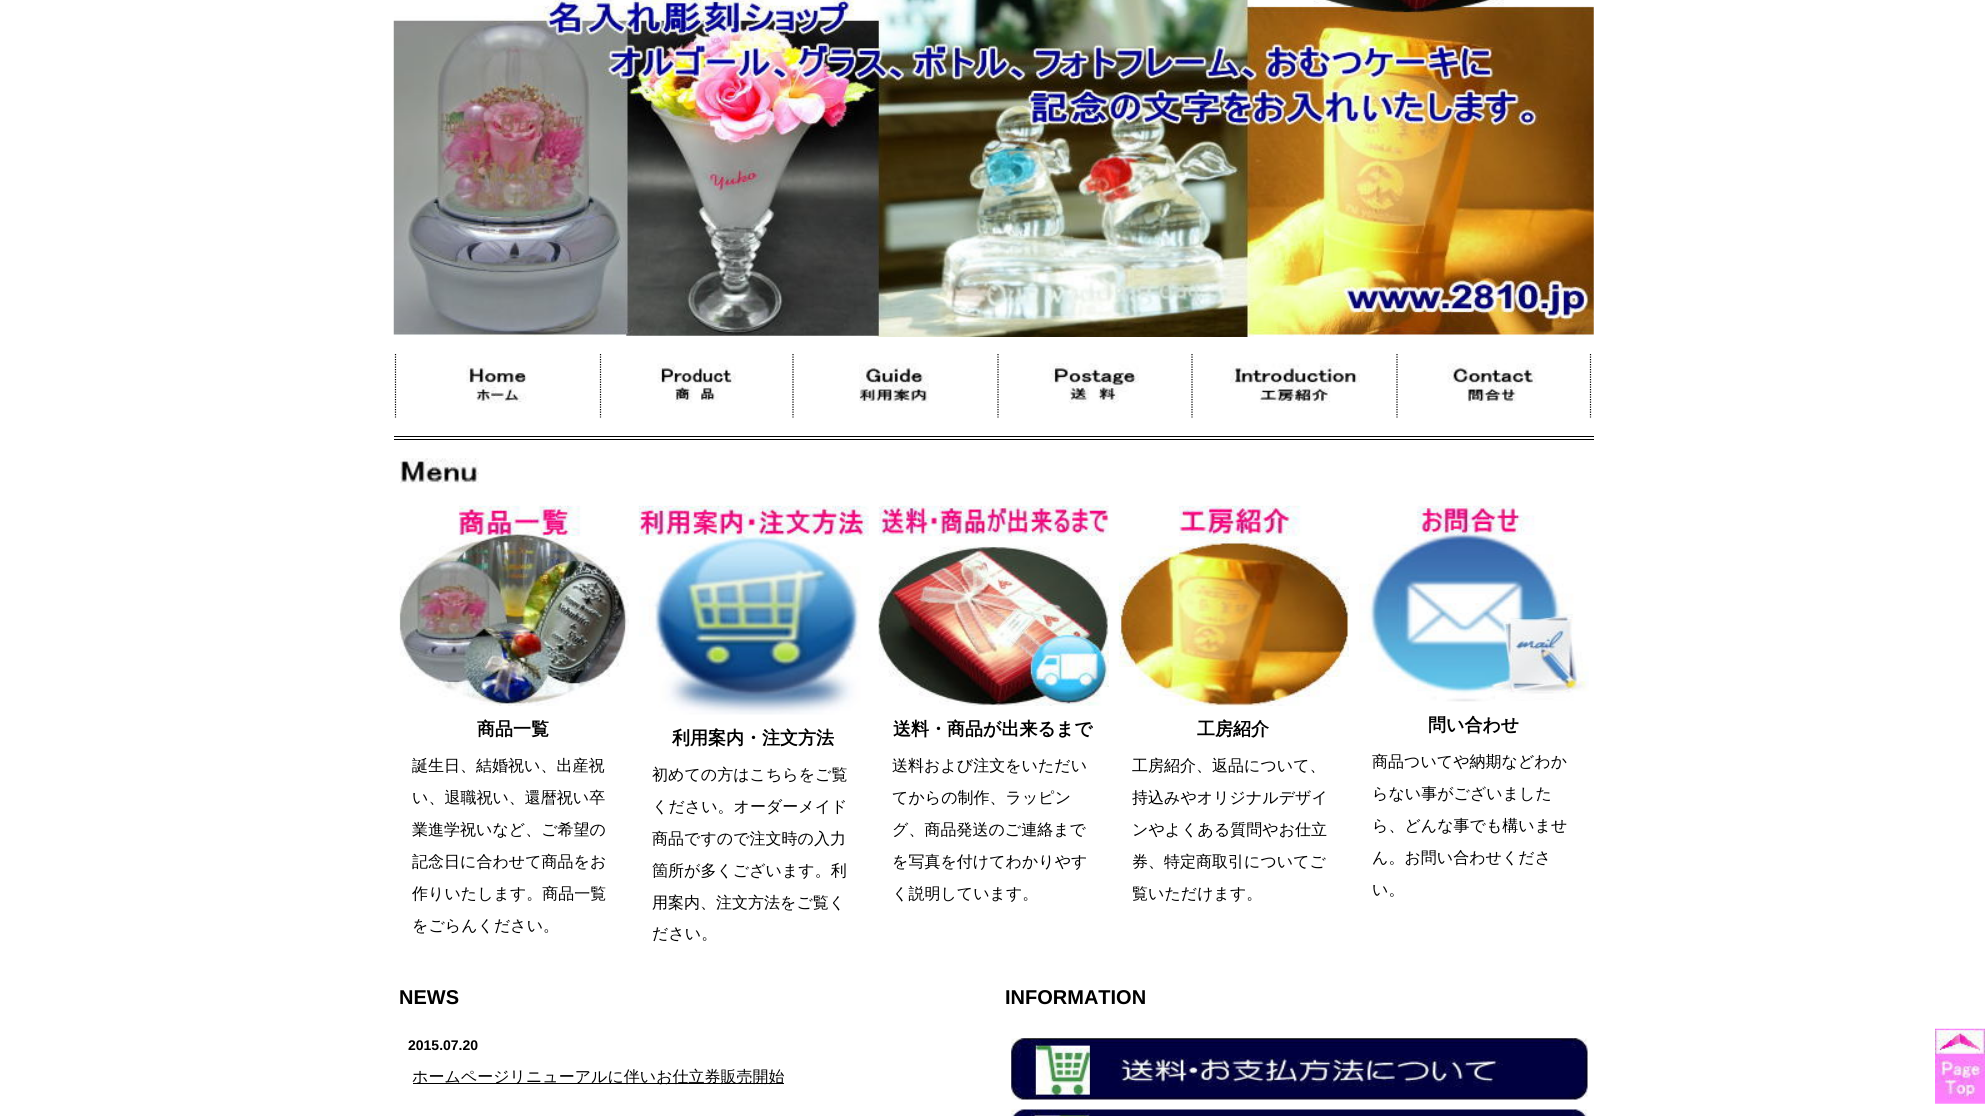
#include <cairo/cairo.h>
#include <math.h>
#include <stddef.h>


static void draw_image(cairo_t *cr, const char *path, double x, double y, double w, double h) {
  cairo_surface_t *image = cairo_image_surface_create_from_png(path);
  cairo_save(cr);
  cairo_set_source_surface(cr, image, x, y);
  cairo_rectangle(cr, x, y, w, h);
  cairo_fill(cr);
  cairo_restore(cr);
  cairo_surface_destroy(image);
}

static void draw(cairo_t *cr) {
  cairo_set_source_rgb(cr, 1, 1, 1);
  cairo_paint(cr);
  draw_image(cr, "images/1.png", 393, 0, 1201, 337);
  cairo_set_source_rgb(cr, 0, 0, 0);
  cairo_rectangle(cr, 394, 436, 1200, 1);
  cairo_fill(cr);
  cairo_rectangle(cr, 394, 439, 1200, 1);
  cairo_fill(cr);
  cairo_new_path(cr);
  cairo_move_to(cr, 600.5, 354);
  cairo_line_to(cr, 600.5, 417.5);
  cairo_set_line_width(cr, 1.2);
  cairo_set_dash(cr, (double[]){1.25, 1.25}, 2, 0);
  cairo_stroke(cr);
  cairo_new_path(cr);
  cairo_move_to(cr, 395.5, 354);
  cairo_line_to(cr, 395.5, 417.5);
  cairo_stroke(cr);
  draw_image(cr, "images/2.png", 466, 365, 61, 39);
  cairo_new_path(cr);
  cairo_move_to(cr, 793, 354);
  cairo_line_to(cr, 793, 417.5);
  cairo_stroke(cr);
  draw_image(cr, "images/3.png", 657, 363, 79, 41);
  cairo_new_path(cr);
  cairo_move_to(cr, 998, 354);
  cairo_line_to(cr, 998, 417.5);
  cairo_stroke(cr);
  draw_image(cr, "images/4.png", 859, 363, 70, 41);
  cairo_new_path(cr);
  cairo_move_to(cr, 1192, 354);
  cairo_line_to(cr, 1192, 417.5);
  cairo_stroke(cr);
  draw_image(cr, "images/5.png", 1049, 363, 90, 41);
  cairo_new_path(cr);
  cairo_move_to(cr, 1397, 354);
  cairo_line_to(cr, 1397, 417.5);
  cairo_stroke(cr);
  draw_image(cr, "images/6.png", 1230, 363, 130, 41);
  cairo_new_path(cr);
  cairo_move_to(cr, 1590.5, 354);
  cairo_line_to(cr, 1590.5, 417.5);
  cairo_stroke(cr);
  draw_image(cr, "images/7.png", 1447, 363, 90, 41);
  draw_image(cr, "images/8.png", 400, 458, 79, 26);
  draw_image(cr, "images/9.png", 399, 505, 230, 201);
  draw_image(cr, "images/10.png", 638, 505, 231, 210);
  draw_image(cr, "images/11.png", 878, 505, 231, 201);
  draw_image(cr, "images/12.png", 1118, 505, 231, 201);
  draw_image(cr, "images/13.png", 1359, 505, 230, 197);
  cairo_rectangle(cr, 413, 1083, 371, 1);
  cairo_fill(cr);
  draw_image(cr, "images/14.png", 1011, 1038, 577, 62);
  draw_image(cr, "images/15.png", 1011, 1109, 577, 7);
  draw_image(cr, "images/16.png", 1935, 1028, 50, 76);
  cairo_select_font_face(cr, "WenQuanYi Zen Hei", CAIRO_FONT_SLANT_NORMAL, CAIRO_FONT_WEIGHT_BOLD);
  cairo_set_font_size(cr, 18);
  cairo_move_to(cr, 477, 735);
  cairo_show_text(cr, "商品一覧");
  cairo_select_font_face(cr, "WenQuanYi Zen Hei Medium", CAIRO_FONT_SLANT_NORMAL, CAIRO_FONT_WEIGHT_NORMAL);
  cairo_set_font_size(cr, 16);
  cairo_move_to(cr, 412, 771);
  cairo_show_text(cr, "誕生日、結婚祝い、出産祝");
  cairo_move_to(cr, 412, 803);
  cairo_show_text(cr, "い、退職祝い、還暦祝い卒");
  cairo_move_to(cr, 412, 835);
  cairo_show_text(cr, "業進学祝いなど、ご希望の");
  cairo_move_to(cr, 412, 867);
  cairo_show_text(cr, "記念日に合わせて商品をお");
  cairo_move_to(cr, 412, 899);
  cairo_show_text(cr, "作りいたします。商品一覧");
  cairo_move_to(cr, 412, 931);
  cairo_show_text(cr, "をごらんください。");
  cairo_select_font_face(cr, "WenQuanYi Zen Hei", CAIRO_FONT_SLANT_NORMAL, CAIRO_FONT_WEIGHT_BOLD);
  cairo_set_font_size(cr, 18);
  cairo_move_to(cr, 672, 744);
  cairo_show_text(cr, "利用案内・注文方法");
  cairo_select_font_face(cr, "WenQuanYi Zen Hei Medium", CAIRO_FONT_SLANT_NORMAL, CAIRO_FONT_WEIGHT_NORMAL);
  cairo_set_font_size(cr, 16);
  cairo_move_to(cr, 652, 780);
  cairo_show_text(cr, "初めての方はこちらをご覧");
  cairo_move_to(cr, 652, 812);
  cairo_show_text(cr, "ください。オーダーメイド");
  cairo_move_to(cr, 652, 844);
  cairo_show_text(cr, "商品ですので注文時の入力");
  cairo_move_to(cr, 652, 876);
  cairo_show_text(cr, "箇所が多くございます。利");
  cairo_move_to(cr, 652, 908);
  cairo_show_text(cr, "用案内、注文方法をご覧く");
  cairo_move_to(cr, 652, 939);
  cairo_show_text(cr, "ださい。");
  cairo_select_font_face(cr, "WenQuanYi Zen Hei", CAIRO_FONT_SLANT_NORMAL, CAIRO_FONT_WEIGHT_BOLD);
  cairo_set_font_size(cr, 18);
  cairo_move_to(cr, 893, 735);
  cairo_show_text(cr, "送料・商品が出来るまで");
  cairo_select_font_face(cr, "WenQuanYi Zen Hei Medium", CAIRO_FONT_SLANT_NORMAL, CAIRO_FONT_WEIGHT_NORMAL);
  cairo_set_font_size(cr, 16);
  cairo_move_to(cr, 892, 771);
  cairo_show_text(cr, "送料および注文をいただい");
  cairo_move_to(cr, 892, 803);
  cairo_show_text(cr, "てからの制作、ラッピン");
  cairo_move_to(cr, 892, 835);
  cairo_show_text(cr, "グ、商品発送のご連絡まで");
  cairo_move_to(cr, 892, 867);
  cairo_show_text(cr, "を写真を付けてわかりやす");
  cairo_move_to(cr, 892, 899);
  cairo_show_text(cr, "く説明しています。");
  cairo_select_font_face(cr, "WenQuanYi Zen Hei", CAIRO_FONT_SLANT_NORMAL, CAIRO_FONT_WEIGHT_BOLD);
  cairo_set_font_size(cr, 18);
  cairo_move_to(cr, 1197, 735);
  cairo_show_text(cr, "工房紹介");
  cairo_select_font_face(cr, "WenQuanYi Zen Hei Medium", CAIRO_FONT_SLANT_NORMAL, CAIRO_FONT_WEIGHT_NORMAL);
  cairo_set_font_size(cr, 16);
  cairo_move_to(cr, 1132, 771);
  cairo_show_text(cr, "工房紹介、返品について、");
  cairo_move_to(cr, 1132, 803);
  cairo_show_text(cr, "持込みやオリジナルデザイ");
  cairo_move_to(cr, 1132, 835);
  cairo_show_text(cr, "ンやよくある質問やお仕立");
  cairo_move_to(cr, 1132, 867);
  cairo_show_text(cr, "券、特定商取引についてご");
  cairo_move_to(cr, 1132, 899);
  cairo_show_text(cr, "覧いただけます。");
  cairo_select_font_face(cr, "WenQuanYi Zen Hei", CAIRO_FONT_SLANT_NORMAL, CAIRO_FONT_WEIGHT_BOLD);
  cairo_set_font_size(cr, 18);
  cairo_move_to(cr, 1428, 731);
  cairo_show_text(cr, "問い合わせ");
  cairo_select_font_face(cr, "WenQuanYi Zen Hei Medium", CAIRO_FONT_SLANT_NORMAL, CAIRO_FONT_WEIGHT_NORMAL);
  cairo_set_font_size(cr, 16);
  cairo_move_to(cr, 1372, 767);
  cairo_show_text(cr, "商品ついてや納期などわか");
  cairo_move_to(cr, 1372, 799);
  cairo_show_text(cr, "らない事がございました");
  cairo_move_to(cr, 1372, 831);
  cairo_show_text(cr, "ら、どんな事でも構いませ");
  cairo_move_to(cr, 1372, 863);
  cairo_show_text(cr, "ん。お問い合わせくださ");
  cairo_move_to(cr, 1372, 895);
  cairo_show_text(cr, "い。");
  cairo_select_font_face(cr, "Liberation Sans", CAIRO_FONT_SLANT_NORMAL, CAIRO_FONT_WEIGHT_BOLD);
  cairo_set_font_size(cr, 20);
  cairo_move_to(cr, 399, 1004);
  cairo_show_text(cr, "NEWS");
  cairo_set_font_size(cr, 14);
  cairo_move_to(cr, 408, 1050);
  cairo_show_text(cr, "2015.07.20");
  cairo_select_font_face(cr, "WenQuanYi Zen Hei Medium", CAIRO_FONT_SLANT_NORMAL, CAIRO_FONT_WEIGHT_NORMAL);
  cairo_set_font_size(cr, 16);
  cairo_move_to(cr, 412, 1082);
  cairo_show_text(cr, "ホームページリニューアルに伴いお仕立券販売開始");
  cairo_select_font_face(cr, "Liberation Sans", CAIRO_FONT_SLANT_NORMAL, CAIRO_FONT_WEIGHT_BOLD);
  cairo_set_font_size(cr, 20);
  cairo_move_to(cr, 1005, 1004);
  cairo_show_text(cr, "INFORMATION");
}

int main(void) {
  cairo_surface_t *surface = cairo_image_surface_create(CAIRO_FORMAT_RGB24, 1986, 1116);
  cairo_t *cr = cairo_create(surface);
  cairo_font_options_t *options = cairo_font_options_create();
  cairo_font_options_set_hint_metrics(options, CAIRO_HINT_METRICS_OFF);
  cairo_font_options_set_hint_style(options, CAIRO_HINT_STYLE_NONE);
  cairo_set_font_options(cr, options);
  cairo_set_miter_limit(cr, 4);
  draw(cr);
  cairo_surface_write_to_png(surface, "out.png");
  cairo_font_options_destroy(options);
  cairo_destroy(cr);
  cairo_surface_destroy(surface);
  return 0;
}
